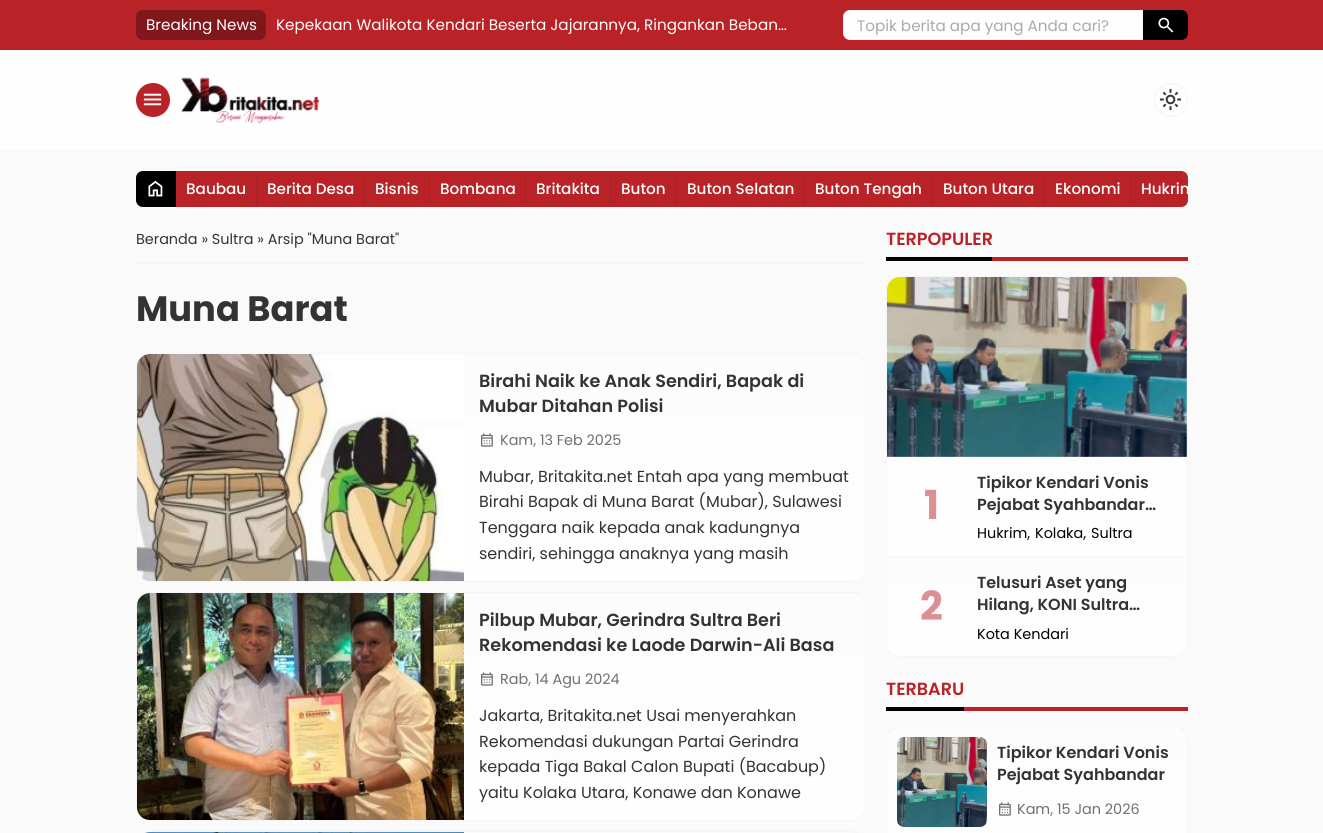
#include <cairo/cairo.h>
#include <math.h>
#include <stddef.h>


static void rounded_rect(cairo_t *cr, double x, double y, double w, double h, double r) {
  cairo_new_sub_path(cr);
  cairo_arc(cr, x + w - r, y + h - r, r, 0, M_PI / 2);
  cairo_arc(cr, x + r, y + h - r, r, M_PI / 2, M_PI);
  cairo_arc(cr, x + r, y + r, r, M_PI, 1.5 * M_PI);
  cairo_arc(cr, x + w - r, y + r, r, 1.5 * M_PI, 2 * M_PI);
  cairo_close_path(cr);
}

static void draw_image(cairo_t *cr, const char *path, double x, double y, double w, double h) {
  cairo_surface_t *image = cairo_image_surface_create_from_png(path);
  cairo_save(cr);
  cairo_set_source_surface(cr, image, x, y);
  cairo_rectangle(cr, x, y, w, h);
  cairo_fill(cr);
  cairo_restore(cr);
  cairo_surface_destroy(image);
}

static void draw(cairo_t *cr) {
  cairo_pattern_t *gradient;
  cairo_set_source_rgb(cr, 250 / 255.0, 250 / 255.0, 250 / 255.0);
  cairo_paint(cr);
  cairo_set_source_rgb(cr, 185 / 255.0, 34 / 255.0, 39 / 255.0);
  cairo_rectangle(cr, 0, 0, 1323, 50);
  cairo_fill(cr);
  cairo_set_source_rgb(cr, 127 / 255.0, 23 / 255.0, 27 / 255.0);
  rounded_rect(cr, 136, 10, 130, 30, 7);
  cairo_fill(cr);
  cairo_set_source_rgb(cr, 254 / 255.0, 254 / 255.0, 254 / 255.0);
  cairo_new_path(cr);
  cairo_move_to(cr, 850, 10.5);
  cairo_line_to(cr, 1142.5, 10.5);
  cairo_line_to(cr, 1142.5, 39.5);
  cairo_line_to(cr, 850, 39.5);
  cairo_curve_to(cr, 846.5, 39.5, 843.5, 36.5, 843.5, 33);
  cairo_line_to(cr, 843.5, 17);
  cairo_curve_to(cr, 843.5, 13.5, 846.5, 10.5, 850, 10.5);
  cairo_close_path(cr);
  cairo_fill_preserve(cr);
  cairo_set_source_rgb(cr, 245 / 255.0, 245 / 255.0, 245 / 255.0);
  cairo_set_line_width(cr, 1);
  cairo_stroke(cr);
  cairo_set_source_rgb(cr, 0, 0, 0);
  cairo_new_path(cr);
  cairo_move_to(cr, 1143, 10);
  cairo_line_to(cr, 1181, 10);
  cairo_curve_to(cr, 1185, 10, 1188, 13, 1188, 17);
  cairo_line_to(cr, 1188, 33);
  cairo_curve_to(cr, 1188, 37, 1185, 40, 1181, 40);
  cairo_line_to(cr, 1143, 40);
  cairo_close_path(cr);
  cairo_fill(cr);
  draw_image(cr, "images/1.png", 1158, 17, 16, 16);
  cairo_set_source_rgb(cr, 254 / 255.0, 254 / 255.0, 254 / 255.0);
  cairo_rectangle(cr, 0, 50, 1323, 100);
  cairo_fill(cr);
  cairo_set_source_rgb(cr, 245 / 255.0, 245 / 255.0, 245 / 255.0);
  cairo_rectangle(cr, 0, 150, 1323, 1);
  cairo_fill(cr);
  cairo_set_source_rgb(cr, 185 / 255.0, 34 / 255.0, 39 / 255.0);
  cairo_arc(cr, 153, 100, 17, 0, 2 * M_PI);
  cairo_fill(cr);
  draw_image(cr, "images/2.png", 143, 93, 19, 13);
  draw_image(cr, "images/3.png", 181, 77, 139, 47);
  cairo_arc(cr, 1171, 100, 16.5, 0, 2 * M_PI);
  cairo_set_source_rgb(cr, 245 / 255.0, 245 / 255.0, 245 / 255.0);
  cairo_stroke(cr);
  draw_image(cr, "images/4.png", 1159, 88, 23, 23);
  cairo_set_source_rgb(cr, 0, 0, 0);
  cairo_new_path(cr);
  cairo_move_to(cr, 143, 171);
  cairo_line_to(cr, 176, 171);
  cairo_line_to(cr, 176, 207);
  cairo_line_to(cr, 143, 207);
  cairo_curve_to(cr, 139, 207, 136, 204, 136, 200);
  cairo_line_to(cr, 136, 178);
  cairo_curve_to(cr, 136, 174, 139, 171, 143, 171);
  cairo_close_path(cr);
  cairo_fill(cr);
  draw_image(cr, "images/5.png", 148, 180, 15, 17);
  cairo_set_source_rgb(cr, 185 / 255.0, 34 / 255.0, 39 / 255.0);
  cairo_new_path(cr);
  cairo_move_to(cr, 176, 171);
  cairo_line_to(cr, 1181, 171);
  cairo_curve_to(cr, 1185, 171, 1188, 174, 1188, 178);
  cairo_line_to(cr, 1188, 200);
  cairo_curve_to(cr, 1188, 204, 1185, 207, 1181, 207);
  cairo_line_to(cr, 176, 207);
  cairo_close_path(cr);
  cairo_fill(cr);
  cairo_set_source_rgb(cr, 173 / 255.0, 32 / 255.0, 37 / 255.0);
  cairo_rectangle(cr, 256, 171, 1, 36);
  cairo_fill(cr);
  cairo_rectangle(cr, 364, 171, 1, 36);
  cairo_fill(cr);
  cairo_rectangle(cr, 429, 171, 1, 36);
  cairo_fill(cr);
  cairo_rectangle(cr, 525, 171, 1, 36);
  cairo_fill(cr);
  cairo_rectangle(cr, 610, 171, 1, 36);
  cairo_fill(cr);
  cairo_rectangle(cr, 676, 171, 1, 36);
  cairo_fill(cr);
  cairo_rectangle(cr, 804, 171, 1, 36);
  cairo_fill(cr);
  cairo_rectangle(cr, 932, 171, 1, 36);
  cairo_fill(cr);
  cairo_rectangle(cr, 1044, 171, 1, 36);
  cairo_fill(cr);
  cairo_rectangle(cr, 1130, 171, 1, 36);
  cairo_fill(cr);
  cairo_set_source_rgb(cr, 245 / 255.0, 245 / 255.0, 245 / 255.0);
  cairo_rectangle(cr, 136, 263, 730, 1);
  cairo_fill(cr);
  cairo_save(cr);
  rounded_rect(cr, 136, 353, 730, 229, 14);
  cairo_clip(cr);
  gradient = cairo_pattern_create_linear(501, 354, 501, 581);
  cairo_pattern_add_color_stop_rgba(gradient, 0, 252 / 255.0, 252 / 255.0, 252 / 255.0, 1);
  cairo_pattern_add_color_stop_rgba(gradient, 1, 254 / 255.0, 254 / 255.0, 254 / 255.0, 1);
  cairo_set_source(cr, gradient);
  cairo_pattern_destroy(gradient);
  cairo_rectangle(cr, 136, 354, 730, 227);
  cairo_fill(cr);
  cairo_restore(cr);
  rounded_rect(cr, 136.5, 353.5, 729, 228, 13.5);
  cairo_stroke(cr);
  draw_image(cr, "images/6.png", 137, 354, 327, 227);
  draw_image(cr, "images/7.png", 481, 433, 12, 14);
  cairo_save(cr);
  rounded_rect(cr, 136, 592, 730, 229, 14);
  cairo_clip(cr);
  gradient = cairo_pattern_create_linear(501, 593, 501, 820);
  cairo_pattern_add_color_stop_rgba(gradient, 0, 252 / 255.0, 252 / 255.0, 252 / 255.0, 1);
  cairo_pattern_add_color_stop_rgba(gradient, 1, 254 / 255.0, 254 / 255.0, 254 / 255.0, 1);
  cairo_set_source(cr, gradient);
  cairo_pattern_destroy(gradient);
  cairo_rectangle(cr, 136, 593, 730, 227);
  cairo_fill(cr);
  cairo_restore(cr);
  rounded_rect(cr, 136.5, 592.5, 729, 228, 13.5);
  cairo_stroke(cr);
  draw_image(cr, "images/8.png", 137, 593, 327, 227);
  draw_image(cr, "images/7.png", 481, 672, 12, 14);
  rounded_rect(cr, 136.5, 831.5, 729, 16, 13.5);
  cairo_stroke(cr);
  draw_image(cr, "images/9.png", 145, 832, 319, 1);
  cairo_set_source_rgb(cr, 0, 0, 0);
  cairo_rectangle(cr, 886, 257, 106, 4);
  cairo_fill(cr);
  cairo_set_source_rgb(cr, 185 / 255.0, 34 / 255.0, 39 / 255.0);
  cairo_rectangle(cr, 992, 257, 196, 4);
  cairo_fill(cr);
  gradient = cairo_pattern_create_linear(1037, 277, 1037, 556);
  cairo_pattern_add_color_stop_rgba(gradient, 0, 252 / 255.0, 252 / 255.0, 252 / 255.0, 1);
  cairo_pattern_add_color_stop_rgba(gradient, 1, 254 / 255.0, 254 / 255.0, 254 / 255.0, 1);
  cairo_set_source(cr, gradient);
  cairo_pattern_destroy(gradient);
  cairo_new_path(cr);
  cairo_move_to(cr, 900, 277);
  cairo_line_to(cr, 1174, 277);
  cairo_curve_to(cr, 1181, 277, 1187, 283, 1187, 290);
  cairo_line_to(cr, 1187, 556);
  cairo_line_to(cr, 887, 556);
  cairo_line_to(cr, 887, 290);
  cairo_curve_to(cr, 887, 283, 893, 277, 900, 277);
  cairo_close_path(cr);
  cairo_fill(cr);
  cairo_set_source_rgb(cr, 245 / 255.0, 245 / 255.0, 245 / 255.0);
  cairo_set_fill_rule(cr, CAIRO_FILL_RULE_EVEN_ODD);
  cairo_new_path(cr);
  cairo_move_to(cr, 900, 276);
  cairo_line_to(cr, 1174, 276);
  cairo_curve_to(cr, 1182, 276, 1188, 282, 1188, 290);
  cairo_line_to(cr, 1188, 556);
  cairo_line_to(cr, 886, 556);
  cairo_line_to(cr, 886, 290);
  cairo_curve_to(cr, 886, 282, 892, 276, 900, 276);
  cairo_close_path(cr);
  cairo_move_to(cr, 900, 277);
  cairo_line_to(cr, 1174, 277);
  cairo_curve_to(cr, 1181, 277, 1187, 283, 1187, 290);
  cairo_line_to(cr, 1187, 556);
  cairo_line_to(cr, 887, 556);
  cairo_line_to(cr, 887, 290);
  cairo_curve_to(cr, 887, 283, 893, 277, 900, 277);
  cairo_close_path(cr);
  cairo_fill(cr);
  draw_image(cr, "images/10.png", 887, 277, 300, 180);
  cairo_save(cr);
  cairo_set_fill_rule(cr, CAIRO_FILL_RULE_WINDING);
  cairo_new_path(cr);
  cairo_move_to(cr, 886, 556);
  cairo_line_to(cr, 1188, 556);
  cairo_line_to(cr, 1188, 643);
  cairo_curve_to(cr, 1188, 650.5, 1181.5, 657, 1174, 657);
  cairo_line_to(cr, 900, 657);
  cairo_curve_to(cr, 892.5, 657, 886, 650.5, 886, 643);
  cairo_close_path(cr);
  cairo_clip(cr);
  gradient = cairo_pattern_create_linear(1037, 557, 1037, 656);
  cairo_pattern_add_color_stop_rgba(gradient, 0, 252 / 255.0, 252 / 255.0, 252 / 255.0, 1);
  cairo_pattern_add_color_stop_rgba(gradient, 1, 254 / 255.0, 254 / 255.0, 254 / 255.0, 1);
  cairo_set_source(cr, gradient);
  cairo_pattern_destroy(gradient);
  cairo_rectangle(cr, 886, 557, 302, 99);
  cairo_fill(cr);
  cairo_restore(cr);
  cairo_new_path(cr);
  cairo_move_to(cr, 886.5, 556.5);
  cairo_line_to(cr, 1187.5, 556.5);
  cairo_line_to(cr, 1187.5, 643);
  cairo_curve_to(cr, 1187.5, 650.5, 1181.5, 656.5, 1174, 656.5);
  cairo_line_to(cr, 900, 656.5);
  cairo_curve_to(cr, 892.5, 656.5, 886.5, 650.5, 886.5, 643);
  cairo_close_path(cr);
  cairo_stroke(cr);
  cairo_set_source_rgb(cr, 0, 0, 0);
  cairo_rectangle(cr, 886, 707, 78, 4);
  cairo_fill(cr);
  cairo_set_source_rgb(cr, 185 / 255.0, 34 / 255.0, 39 / 255.0);
  cairo_rectangle(cr, 964, 707, 224, 4);
  cairo_fill(cr);
  gradient = cairo_pattern_create_linear(1037, 727, 1037, 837);
  cairo_pattern_add_color_stop_rgba(gradient, 0, 252 / 255.0, 252 / 255.0, 252 / 255.0, 1);
  cairo_pattern_add_color_stop_rgba(gradient, 1, 254 / 255.0, 254 / 255.0, 254 / 255.0, 1);
  cairo_set_source(cr, gradient);
  cairo_pattern_destroy(gradient);
  cairo_new_path(cr);
  cairo_move_to(cr, 900, 727);
  cairo_line_to(cr, 1174, 727);
  cairo_curve_to(cr, 1181, 727, 1187, 733, 1187, 740);
  cairo_line_to(cr, 1187, 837);
  cairo_line_to(cr, 887, 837);
  cairo_line_to(cr, 887, 740);
  cairo_curve_to(cr, 887, 733, 893, 727, 900, 727);
  cairo_close_path(cr);
  cairo_fill(cr);
  cairo_set_source_rgb(cr, 245 / 255.0, 245 / 255.0, 245 / 255.0);
  cairo_new_path(cr);
  cairo_move_to(cr, 900, 726);
  cairo_line_to(cr, 1174, 726);
  cairo_curve_to(cr, 1182, 726, 1188, 732, 1188, 740);
  cairo_line_to(cr, 1188, 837);
  cairo_line_to(cr, 886, 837);
  cairo_line_to(cr, 886, 740);
  cairo_curve_to(cr, 886, 732, 892, 726, 900, 726);
  cairo_close_path(cr);
  cairo_move_to(cr, 900, 727);
  cairo_line_to(cr, 1174, 727);
  cairo_curve_to(cr, 1181, 727, 1187, 733, 1187, 740);
  cairo_line_to(cr, 1187, 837);
  cairo_line_to(cr, 887, 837);
  cairo_line_to(cr, 887, 740);
  cairo_curve_to(cr, 887, 733, 893, 727, 900, 727);
  cairo_close_path(cr);
  cairo_fill(cr);
  draw_image(cr, "images/11.png", 897, 737, 90, 90);
  draw_image(cr, "images/12.png", 999, 802, 12, 14);
  cairo_select_font_face(cr, "Poppins", CAIRO_FONT_SLANT_NORMAL, CAIRO_FONT_WEIGHT_NORMAL);
  cairo_set_font_size(cr, 15.2);
  cairo_set_source_rgb(cr, 1, 1, 1);
  cairo_move_to(cr, 146, 30);
  cairo_show_text(cr, "Breaking News");
  cairo_move_to(cr, 276, 30);
  cairo_show_text(cr, "Kepekaan Walikota Kendari Beserta Jajarannya, Ringankan Beban…");
  cairo_set_source_rgb(cr, 170 / 255.0, 170 / 255.0, 170 / 255.0);
  cairo_move_to(cr, 857, 31);
  cairo_show_text(cr, "Topik berita apa yang Anda cari?");
  cairo_select_font_face(cr, "Poppins Medium", CAIRO_FONT_SLANT_NORMAL, CAIRO_FONT_WEIGHT_NORMAL);
  cairo_set_source_rgb(cr, 1, 1, 1);
  cairo_move_to(cr, 186, 194);
  cairo_show_text(cr, "Baubau");
  cairo_move_to(cr, 267, 194);
  cairo_show_text(cr, "Berita Desa");
  cairo_move_to(cr, 375, 194);
  cairo_show_text(cr, "Bisnis");
  cairo_move_to(cr, 440, 194);
  cairo_show_text(cr, "Bombana");
  cairo_move_to(cr, 536, 194);
  cairo_show_text(cr, "Britakita");
  cairo_move_to(cr, 621, 194);
  cairo_show_text(cr, "Buton");
  cairo_move_to(cr, 687, 194);
  cairo_show_text(cr, "Buton Selatan");
  cairo_move_to(cr, 815, 194);
  cairo_show_text(cr, "Buton Tengah");
  cairo_move_to(cr, 943, 194);
  cairo_show_text(cr, "Buton Utara");
  cairo_move_to(cr, 1055, 194);
  cairo_show_text(cr, "Ekonomi");
  cairo_save(cr);
  cairo_set_fill_rule(cr, CAIRO_FILL_RULE_WINDING);
  cairo_rectangle(cr, 176, 171, 1012, 36);
  cairo_clip(cr);
  cairo_move_to(cr, 1141, 194);
  cairo_show_text(cr, "Hukrim");
  cairo_restore(cr);
  cairo_select_font_face(cr, "Poppins", CAIRO_FONT_SLANT_NORMAL, CAIRO_FONT_WEIGHT_NORMAL);
  cairo_set_font_size(cr, 14.4);
  cairo_set_source_rgb(cr, 51 / 255.0, 51 / 255.0, 51 / 255.0);
  cairo_move_to(cr, 136, 244);
  cairo_show_text(cr, "Beranda » Sultra » Arsip \"Muna Barat\"");
  cairo_select_font_face(cr, "Poppins", CAIRO_FONT_SLANT_NORMAL, CAIRO_FONT_WEIGHT_BOLD);
  cairo_set_font_size(cr, 35.25);
  cairo_move_to(cr, 136, 321);
  cairo_show_text(cr, "Muna Barat");
  cairo_select_font_face(cr, "Poppins SemiBold", CAIRO_FONT_SLANT_NORMAL, CAIRO_FONT_WEIGHT_NORMAL);
  cairo_set_font_size(cr, 17.6);
  cairo_move_to(cr, 479, 387);
  cairo_show_text(cr, "Birahi Naik ke Anak Sendiri, Bapak di");
  cairo_move_to(cr, 479, 412);
  cairo_show_text(cr, "Mubar Ditahan Polisi");
  cairo_select_font_face(cr, "Poppins", CAIRO_FONT_SLANT_NORMAL, CAIRO_FONT_WEIGHT_NORMAL);
  cairo_set_font_size(cr, 14.4);
  cairo_set_source_rgb(cr, 112 / 255.0, 112 / 255.0, 112 / 255.0);
  cairo_move_to(cr, 500, 445);
  cairo_show_text(cr, "Kam, 13 Feb 2025");
  cairo_set_font_size(cr, 16);
  cairo_set_source_rgb(cr, 51 / 255.0, 51 / 255.0, 51 / 255.0);
  cairo_move_to(cr, 479, 482);
  cairo_show_text(cr, "Mubar, Britakita.net Entah apa yang membuat");
  cairo_move_to(cr, 479, 507);
  cairo_show_text(cr, "Birahi Bapak di Muna Barat (Mubar), Sulawesi");
  cairo_move_to(cr, 479, 533);
  cairo_show_text(cr, "Tenggara naik kepada anak kadungnya");
  cairo_move_to(cr, 479, 559);
  cairo_show_text(cr, "sendiri, sehingga anaknya yang masih");
  cairo_select_font_face(cr, "Poppins SemiBold", CAIRO_FONT_SLANT_NORMAL, CAIRO_FONT_WEIGHT_NORMAL);
  cairo_set_font_size(cr, 17.6);
  cairo_move_to(cr, 479, 626);
  cairo_show_text(cr, "Pilbup Mubar, Gerindra Sultra Beri");
  cairo_move_to(cr, 479, 651);
  cairo_show_text(cr, "Rekomendasi ke Laode Darwin-Ali Basa");
  cairo_select_font_face(cr, "Poppins", CAIRO_FONT_SLANT_NORMAL, CAIRO_FONT_WEIGHT_NORMAL);
  cairo_set_font_size(cr, 14.4);
  cairo_set_source_rgb(cr, 112 / 255.0, 112 / 255.0, 112 / 255.0);
  cairo_move_to(cr, 500, 684);
  cairo_show_text(cr, "Rab, 14 Agu 2024");
  cairo_set_font_size(cr, 16);
  cairo_set_source_rgb(cr, 51 / 255.0, 51 / 255.0, 51 / 255.0);
  cairo_move_to(cr, 479, 721);
  cairo_show_text(cr, "Jakarta, Britakita.net Usai menyerahkan");
  cairo_move_to(cr, 479, 747);
  cairo_show_text(cr, "Rekomendasi dukungan Partai Gerindra");
  cairo_move_to(cr, 479, 772);
  cairo_show_text(cr, "kepada Tiga Bakal Calon Bupati (Bacabup)");
  cairo_move_to(cr, 479, 798);
  cairo_show_text(cr, "yaitu Kolaka Utara, Konawe dan Konawe");
  cairo_select_font_face(cr, "Poppins SemiBold", CAIRO_FONT_SLANT_NORMAL, CAIRO_FONT_WEIGHT_NORMAL);
  cairo_set_font_size(cr, 17.6);
  cairo_set_source_rgb(cr, 185 / 255.0, 34 / 255.0, 39 / 255.0);
  cairo_move_to(cr, 886, 245);
  cairo_show_text(cr, "TERPOPULER");
  cairo_select_font_face(cr, "Poppins", CAIRO_FONT_SLANT_NORMAL, CAIRO_FONT_WEIGHT_BOLD);
  cairo_set_font_size(cr, 40);
  cairo_set_source_rgb(cr, 220 / 255.0, 144 / 255.0, 147 / 255.0);
  cairo_move_to(cr, 924, 519);
  cairo_show_text(cr, "1");
  cairo_select_font_face(cr, "Poppins SemiBold", CAIRO_FONT_SLANT_NORMAL, CAIRO_FONT_WEIGHT_NORMAL);
  cairo_set_font_size(cr, 16);
  cairo_set_source_rgb(cr, 51 / 255.0, 51 / 255.0, 51 / 255.0);
  cairo_move_to(cr, 977, 488);
  cairo_show_text(cr, "Tipikor Kendari Vonis");
  cairo_move_to(cr, 977, 510);
  cairo_show_text(cr, "Pejabat Syahbandar…");
  cairo_select_font_face(cr, "Poppins", CAIRO_FONT_SLANT_NORMAL, CAIRO_FONT_WEIGHT_NORMAL);
  cairo_set_font_size(cr, 14.4);
  cairo_set_source_rgb(cr, 0, 0, 0);
  cairo_move_to(cr, 977, 538);
  cairo_show_text(cr, "Hukrim,");
  cairo_move_to(cr, 1035, 538);
  cairo_show_text(cr, "Kolaka,");
  cairo_move_to(cr, 1091, 538);
  cairo_show_text(cr, "Sultra");
  cairo_select_font_face(cr, "Poppins", CAIRO_FONT_SLANT_NORMAL, CAIRO_FONT_WEIGHT_BOLD);
  cairo_set_font_size(cr, 40);
  cairo_set_source_rgb(cr, 220 / 255.0, 144 / 255.0, 147 / 255.0);
  cairo_move_to(cr, 920, 620);
  cairo_show_text(cr, "2");
  cairo_select_font_face(cr, "Poppins SemiBold", CAIRO_FONT_SLANT_NORMAL, CAIRO_FONT_WEIGHT_NORMAL);
  cairo_set_font_size(cr, 16);
  cairo_set_source_rgb(cr, 51 / 255.0, 51 / 255.0, 51 / 255.0);
  cairo_move_to(cr, 977, 588);
  cairo_show_text(cr, "Telusuri Aset yang");
  cairo_move_to(cr, 977, 610);
  cairo_show_text(cr, "Hilang, KONI Sultra…");
  cairo_select_font_face(cr, "Poppins", CAIRO_FONT_SLANT_NORMAL, CAIRO_FONT_WEIGHT_NORMAL);
  cairo_set_font_size(cr, 14.4);
  cairo_set_source_rgb(cr, 0, 0, 0);
  cairo_move_to(cr, 977, 639);
  cairo_show_text(cr, "Kota Kendari");
  cairo_select_font_face(cr, "Poppins SemiBold", CAIRO_FONT_SLANT_NORMAL, CAIRO_FONT_WEIGHT_NORMAL);
  cairo_set_font_size(cr, 17.6);
  cairo_set_source_rgb(cr, 185 / 255.0, 34 / 255.0, 39 / 255.0);
  cairo_move_to(cr, 886, 695);
  cairo_show_text(cr, "TERBARU");
  cairo_set_font_size(cr, 16);
  cairo_set_source_rgb(cr, 51 / 255.0, 51 / 255.0, 51 / 255.0);
  cairo_move_to(cr, 997, 758);
  cairo_show_text(cr, "Tipikor Kendari Vonis");
  cairo_move_to(cr, 997, 780);
  cairo_show_text(cr, "Pejabat Syahbandar");
  cairo_select_font_face(cr, "Poppins", CAIRO_FONT_SLANT_NORMAL, CAIRO_FONT_WEIGHT_NORMAL);
  cairo_set_font_size(cr, 14.4);
  cairo_set_source_rgb(cr, 112 / 255.0, 112 / 255.0, 112 / 255.0);
  cairo_move_to(cr, 1017, 814);
  cairo_show_text(cr, "Kam, 15 Jan 2026");
}

int main(void) {
  cairo_surface_t *surface = cairo_image_surface_create(CAIRO_FORMAT_RGB24, 1323, 833);
  cairo_t *cr = cairo_create(surface);
  cairo_font_options_t *options = cairo_font_options_create();
  cairo_font_options_set_hint_metrics(options, CAIRO_HINT_METRICS_OFF);
  cairo_font_options_set_hint_style(options, CAIRO_HINT_STYLE_NONE);
  cairo_set_font_options(cr, options);
  cairo_set_miter_limit(cr, 4);
  draw(cr);
  cairo_surface_write_to_png(surface, "out.png");
  cairo_font_options_destroy(options);
  cairo_destroy(cr);
  cairo_surface_destroy(surface);
  return 0;
}
